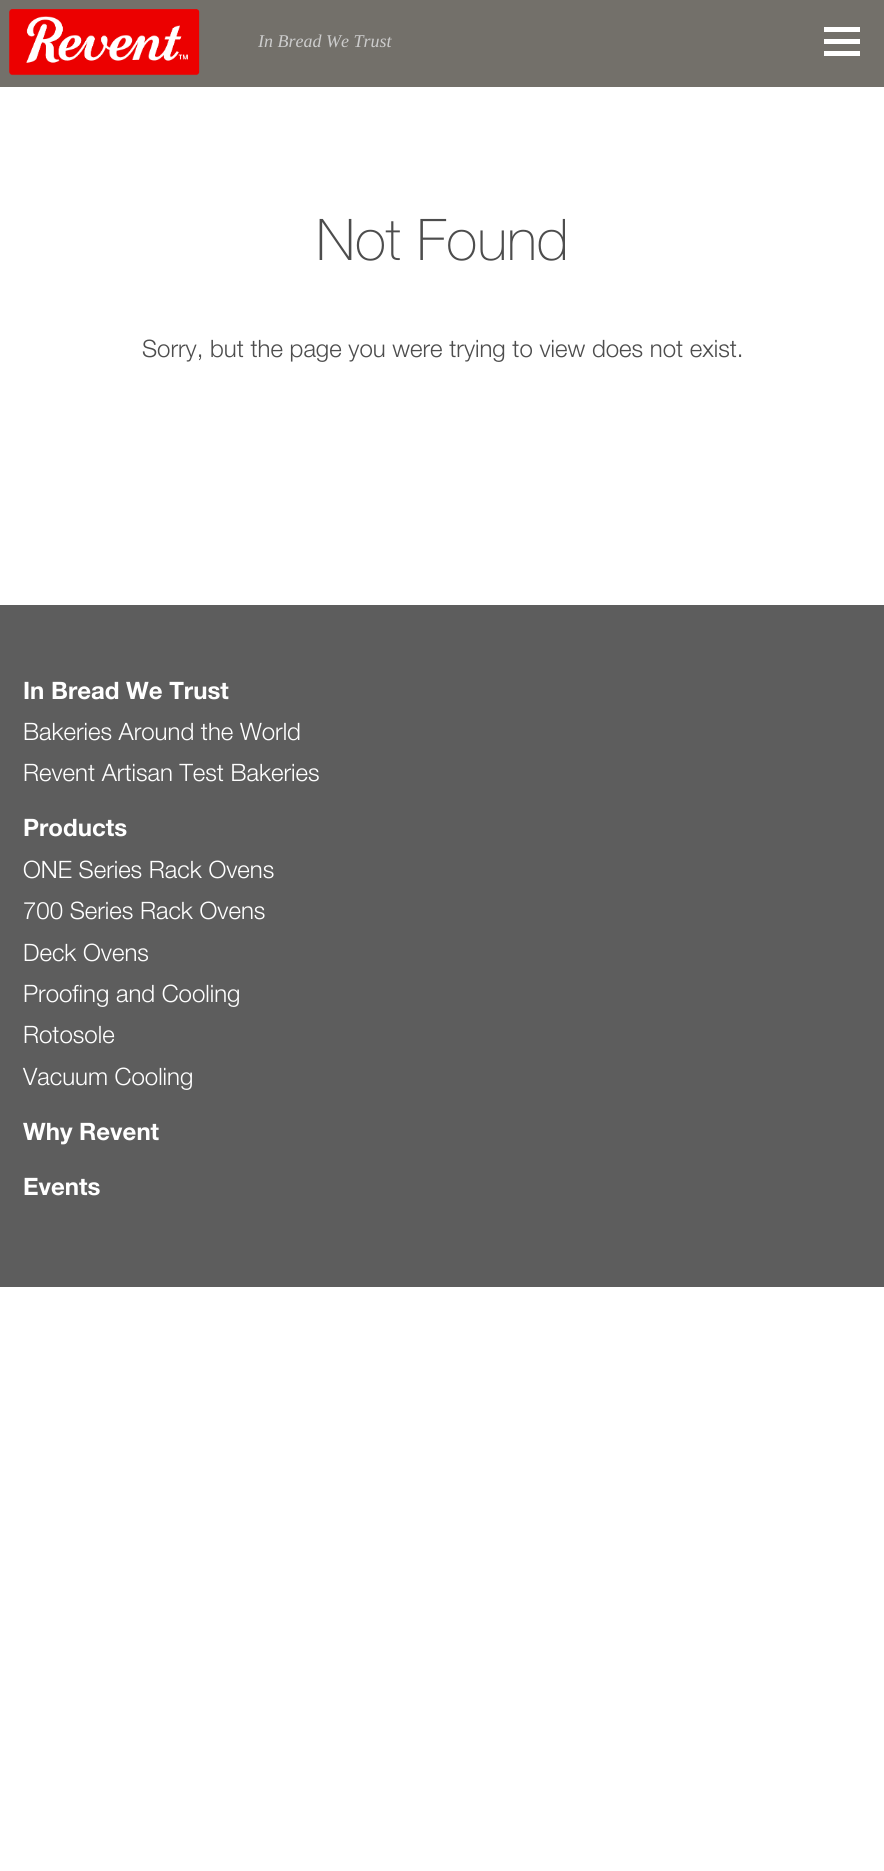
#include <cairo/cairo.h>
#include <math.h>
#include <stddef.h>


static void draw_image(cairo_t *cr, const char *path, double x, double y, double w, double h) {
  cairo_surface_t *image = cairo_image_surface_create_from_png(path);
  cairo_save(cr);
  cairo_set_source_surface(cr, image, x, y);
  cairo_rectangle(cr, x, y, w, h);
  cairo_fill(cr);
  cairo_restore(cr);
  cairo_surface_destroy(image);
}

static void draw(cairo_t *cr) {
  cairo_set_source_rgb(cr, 1, 1, 1);
  cairo_paint(cr);
  cairo_set_source_rgb(cr, 115 / 255.0, 112 / 255.0, 106 / 255.0);
  cairo_rectangle(cr, 0, 0, 884, 87);
  cairo_fill(cr);
  draw_image(cr, "images/1.png", 9, 9, 191, 67);
  cairo_set_source_rgb(cr, 1, 1, 1);
  cairo_rectangle(cr, 824, 39, 36, 5);
  cairo_fill(cr);
  cairo_rectangle(cr, 824, 27, 36, 5);
  cairo_fill(cr);
  cairo_rectangle(cr, 824, 51, 36, 5);
  cairo_fill(cr);
  cairo_set_source_rgb(cr, 93 / 255.0, 93 / 255.0, 93 / 255.0);
  cairo_rectangle(cr, 0, 605, 884, 682);
  cairo_fill(cr);
  cairo_select_font_face(cr, "Liberation Serif", CAIRO_FONT_SLANT_ITALIC, CAIRO_FONT_WEIGHT_NORMAL);
  cairo_set_font_size(cr, 18);
  cairo_set_source_rgb(cr, 204 / 255.0, 204 / 255.0, 204 / 255.0);
  cairo_move_to(cr, 258, 47);
  cairo_show_text(cr, "In Bread We Trust");
  cairo_select_font_face(cr, "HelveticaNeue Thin", CAIRO_FONT_SLANT_NORMAL, CAIRO_FONT_WEIGHT_NORMAL);
  cairo_set_font_size(cr, 57.5);
  cairo_set_source_rgb(cr, 77 / 255.0, 77 / 255.0, 77 / 255.0);
  cairo_move_to(cr, 316, 260);
  cairo_show_text(cr, "Not Found");
  cairo_select_font_face(cr, "HelveticaNeue Light", CAIRO_FONT_SLANT_NORMAL, CAIRO_FONT_WEIGHT_NORMAL);
  cairo_set_font_size(cr, 24);
  cairo_move_to(cr, 142, 357);
  cairo_show_text(cr, "Sorry, but the page you were trying to view does not exist.");
  cairo_select_font_face(cr, "HelveticaNeue", CAIRO_FONT_SLANT_NORMAL, CAIRO_FONT_WEIGHT_BOLD);
  cairo_set_source_rgb(cr, 1, 1, 1);
  cairo_move_to(cr, 23, 699);
  cairo_show_text(cr, "In Bread We Trust");
  cairo_select_font_face(cr, "HelveticaNeue Light", CAIRO_FONT_SLANT_NORMAL, CAIRO_FONT_WEIGHT_NORMAL);
  cairo_move_to(cr, 23, 740);
  cairo_show_text(cr, "Bakeries Around the World");
  cairo_move_to(cr, 23, 781);
  cairo_show_text(cr, "Revent Artisan Test Bakeries");
  cairo_select_font_face(cr, "HelveticaNeue", CAIRO_FONT_SLANT_NORMAL, CAIRO_FONT_WEIGHT_BOLD);
  cairo_move_to(cr, 23, 836);
  cairo_show_text(cr, "Products");
  cairo_select_font_face(cr, "HelveticaNeue Light", CAIRO_FONT_SLANT_NORMAL, CAIRO_FONT_WEIGHT_NORMAL);
  cairo_move_to(cr, 23, 878);
  cairo_show_text(cr, "ONE Series Rack Ovens");
  cairo_move_to(cr, 23, 919);
  cairo_show_text(cr, "700 Series Rack Ovens");
  cairo_move_to(cr, 23, 961);
  cairo_show_text(cr, "Deck Ovens");
  cairo_move_to(cr, 23, 1002);
  cairo_show_text(cr, "Proofing and Cooling");
  cairo_move_to(cr, 23, 1043);
  cairo_show_text(cr, "Rotosole");
  cairo_move_to(cr, 23, 1085);
  cairo_show_text(cr, "Vacuum Cooling");
  cairo_select_font_face(cr, "HelveticaNeue", CAIRO_FONT_SLANT_NORMAL, CAIRO_FONT_WEIGHT_BOLD);
  cairo_move_to(cr, 23, 1140);
  cairo_show_text(cr, "Why Revent");
  cairo_move_to(cr, 23, 1195);
  cairo_show_text(cr, "Events");
}

int main(void) {
  cairo_surface_t *surface = cairo_image_surface_create(CAIRO_FORMAT_RGB24, 884, 1871);
  cairo_t *cr = cairo_create(surface);
  cairo_font_options_t *options = cairo_font_options_create();
  cairo_font_options_set_hint_metrics(options, CAIRO_HINT_METRICS_OFF);
  cairo_font_options_set_hint_style(options, CAIRO_HINT_STYLE_NONE);
  cairo_set_font_options(cr, options);
  cairo_set_miter_limit(cr, 4);
  draw(cr);
  cairo_surface_write_to_png(surface, "out.png");
  cairo_font_options_destroy(options);
  cairo_destroy(cr);
  cairo_surface_destroy(surface);
  return 0;
}
